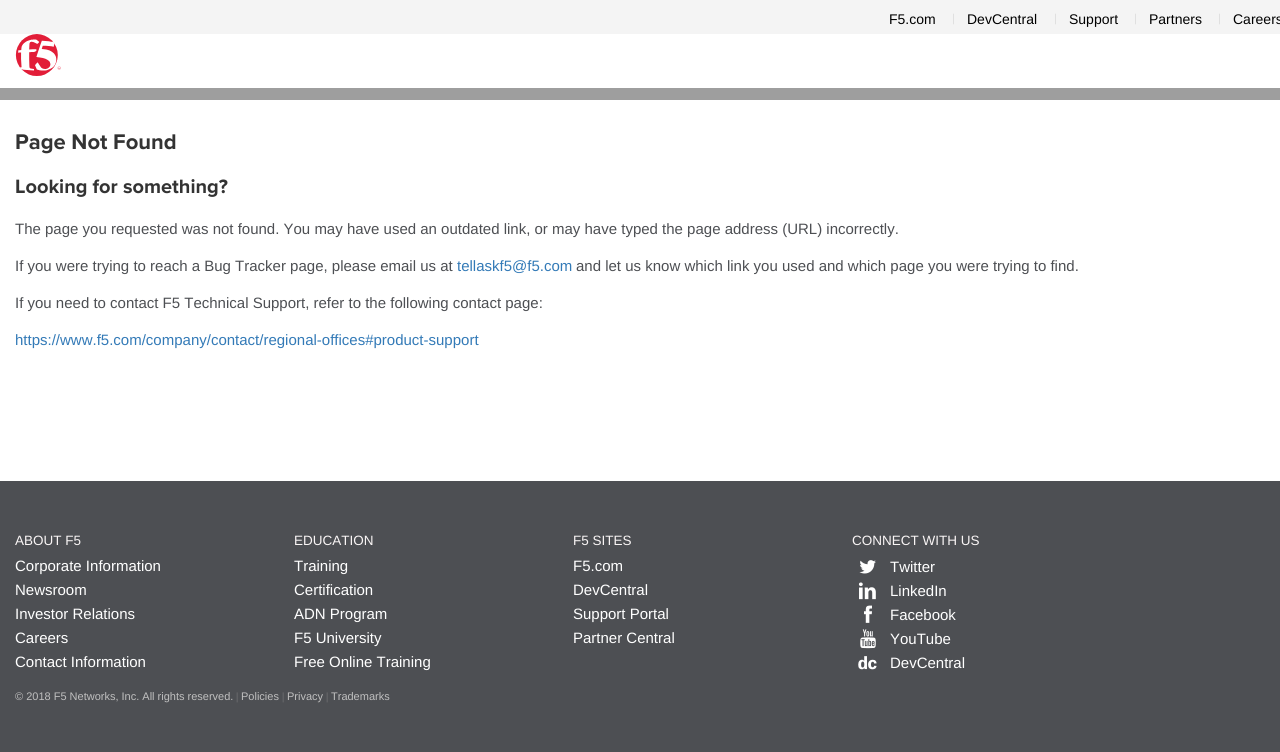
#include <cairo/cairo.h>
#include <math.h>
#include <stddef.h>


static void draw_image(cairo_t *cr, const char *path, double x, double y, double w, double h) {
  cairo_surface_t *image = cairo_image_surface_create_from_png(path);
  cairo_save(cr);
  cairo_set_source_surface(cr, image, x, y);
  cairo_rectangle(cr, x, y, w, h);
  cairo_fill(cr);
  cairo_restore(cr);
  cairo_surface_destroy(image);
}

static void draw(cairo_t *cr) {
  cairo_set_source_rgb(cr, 1, 1, 1);
  cairo_paint(cr);
  cairo_set_source_rgb(cr, 244 / 255.0, 244 / 255.0, 244 / 255.0);
  cairo_rectangle(cr, 0, 0, 1280, 34);
  cairo_fill(cr);
  cairo_set_source_rgb(cr, 158 / 255.0, 158 / 255.0, 158 / 255.0);
  cairo_rectangle(cr, 0, 88, 1280, 12);
  cairo_fill(cr);
  draw_image(cr, "images/1.png", 15, 34, 46, 42);
  cairo_set_source_rgb(cr, 77 / 255.0, 79 / 255.0, 83 / 255.0);
  cairo_rectangle(cr, 0, 481, 1280, 271);
  cairo_fill(cr);
  draw_image(cr, "images/2.png", 859, 560, 17, 14);
  draw_image(cr, "images/3.png", 858, 582, 18, 18);
  draw_image(cr, "images/4.png", 864, 605, 8, 18);
  draw_image(cr, "images/5.png", 860, 629, 16, 20);
  draw_image(cr, "images/6.png", 858, 656, 19, 14);
  cairo_select_font_face(cr, "Liberation Sans", CAIRO_FONT_SLANT_NORMAL, CAIRO_FONT_WEIGHT_NORMAL);
  cairo_set_font_size(cr, 14);
  cairo_set_source_rgb(cr, 0, 0, 0);
  cairo_move_to(cr, 889, 24);
  cairo_show_text(cr, "F5.com");
  cairo_select_font_face(cr, "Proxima", CAIRO_FONT_SLANT_NORMAL, CAIRO_FONT_WEIGHT_NORMAL);
  cairo_set_font_size(cr, 15);
  cairo_set_source_rgb(cr, 199 / 255.0, 199 / 255.0, 199 / 255.0);
  cairo_move_to(cr, 952, 24);
  cairo_show_text(cr, "|");
  cairo_select_font_face(cr, "Liberation Sans", CAIRO_FONT_SLANT_NORMAL, CAIRO_FONT_WEIGHT_NORMAL);
  cairo_set_font_size(cr, 14);
  cairo_set_source_rgb(cr, 0, 0, 0);
  cairo_move_to(cr, 967, 24);
  cairo_show_text(cr, "DevCentral");
  cairo_select_font_face(cr, "Proxima", CAIRO_FONT_SLANT_NORMAL, CAIRO_FONT_WEIGHT_NORMAL);
  cairo_set_font_size(cr, 15);
  cairo_set_source_rgb(cr, 199 / 255.0, 199 / 255.0, 199 / 255.0);
  cairo_move_to(cr, 1054, 24);
  cairo_show_text(cr, "|");
  cairo_select_font_face(cr, "Liberation Sans", CAIRO_FONT_SLANT_NORMAL, CAIRO_FONT_WEIGHT_NORMAL);
  cairo_set_font_size(cr, 14);
  cairo_set_source_rgb(cr, 0, 0, 0);
  cairo_move_to(cr, 1069, 24);
  cairo_show_text(cr, "Support");
  cairo_select_font_face(cr, "Proxima", CAIRO_FONT_SLANT_NORMAL, CAIRO_FONT_WEIGHT_NORMAL);
  cairo_set_font_size(cr, 15);
  cairo_set_source_rgb(cr, 199 / 255.0, 199 / 255.0, 199 / 255.0);
  cairo_move_to(cr, 1134, 24);
  cairo_show_text(cr, "|");
  cairo_select_font_face(cr, "Liberation Sans", CAIRO_FONT_SLANT_NORMAL, CAIRO_FONT_WEIGHT_NORMAL);
  cairo_set_font_size(cr, 14);
  cairo_set_source_rgb(cr, 0, 0, 0);
  cairo_move_to(cr, 1149, 24);
  cairo_show_text(cr, "Partners");
  cairo_select_font_face(cr, "Proxima", CAIRO_FONT_SLANT_NORMAL, CAIRO_FONT_WEIGHT_NORMAL);
  cairo_set_font_size(cr, 15);
  cairo_set_source_rgb(cr, 199 / 255.0, 199 / 255.0, 199 / 255.0);
  cairo_move_to(cr, 1218, 24);
  cairo_show_text(cr, "|");
  cairo_select_font_face(cr, "Liberation Sans", CAIRO_FONT_SLANT_NORMAL, CAIRO_FONT_WEIGHT_NORMAL);
  cairo_set_font_size(cr, 14);
  cairo_set_source_rgb(cr, 0, 0, 0);
  cairo_move_to(cr, 1233, 24);
  cairo_show_text(cr, "Careers");
  cairo_select_font_face(cr, "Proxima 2", CAIRO_FONT_SLANT_NORMAL, CAIRO_FONT_WEIGHT_NORMAL);
  cairo_set_font_size(cr, 22);
  cairo_set_source_rgb(cr, 51 / 255.0, 51 / 255.0, 51 / 255.0);
  cairo_move_to(cr, 15, 149);
  cairo_show_text(cr, "Page Not Found");
  cairo_set_font_size(cr, 20);
  cairo_move_to(cr, 15, 193);
  cairo_show_text(cr, "Looking for something?");
  cairo_select_font_face(cr, "Liberation Sans", CAIRO_FONT_SLANT_NORMAL, CAIRO_FONT_WEIGHT_NORMAL);
  cairo_set_font_size(cr, 15);
  cairo_set_source_rgb(cr, 77 / 255.0, 79 / 255.0, 83 / 255.0);
  cairo_move_to(cr, 15, 234);
  cairo_show_text(cr, "The page you requested was not found. You may have used an outdated link, or may have typed the page address (URL) incorrectly.");
  cairo_move_to(cr, 15, 271);
  cairo_show_text(cr, "If you were trying to reach a Bug Tracker page, please email us at");
  cairo_set_source_rgb(cr, 51 / 255.0, 122 / 255.0, 183 / 255.0);
  cairo_move_to(cr, 457, 271);
  cairo_show_text(cr, "tellaskf5@f5.com");
  cairo_set_source_rgb(cr, 77 / 255.0, 79 / 255.0, 83 / 255.0);
  cairo_move_to(cr, 576, 271);
  cairo_show_text(cr, "and let us know which link you used and which page you were trying to find.");
  cairo_move_to(cr, 15, 308);
  cairo_show_text(cr, "If you need to contact F5 Technical Support, refer to the following contact page:");
  cairo_set_source_rgb(cr, 51 / 255.0, 122 / 255.0, 183 / 255.0);
  cairo_move_to(cr, 15, 345);
  cairo_show_text(cr, "https://www.f5.com/company/contact/regional-offices#product-support");
  cairo_set_font_size(cr, 13.5);
  cairo_set_source_rgb(cr, 249 / 255.0, 245 / 255.0, 245 / 255.0);
  cairo_move_to(cr, 15, 545);
  cairo_show_text(cr, "ABOUT F5");
  cairo_set_font_size(cr, 15);
  cairo_set_source_rgb(cr, 1, 1, 1);
  cairo_move_to(cr, 15, 571);
  cairo_show_text(cr, "Corporate Information");
  cairo_move_to(cr, 15, 595);
  cairo_show_text(cr, "Newsroom");
  cairo_move_to(cr, 15, 619);
  cairo_show_text(cr, "Investor Relations");
  cairo_move_to(cr, 15, 643);
  cairo_show_text(cr, "Careers");
  cairo_move_to(cr, 15, 667);
  cairo_show_text(cr, "Contact Information");
  cairo_set_font_size(cr, 13.5);
  cairo_set_source_rgb(cr, 249 / 255.0, 245 / 255.0, 245 / 255.0);
  cairo_move_to(cr, 294, 545);
  cairo_show_text(cr, "EDUCATION");
  cairo_set_font_size(cr, 15);
  cairo_set_source_rgb(cr, 1, 1, 1);
  cairo_move_to(cr, 294, 571);
  cairo_show_text(cr, "Training");
  cairo_move_to(cr, 294, 595);
  cairo_show_text(cr, "Certification");
  cairo_move_to(cr, 294, 619);
  cairo_show_text(cr, "ADN Program");
  cairo_move_to(cr, 294, 643);
  cairo_show_text(cr, "F5 University");
  cairo_move_to(cr, 294, 667);
  cairo_show_text(cr, "Free Online Training");
  cairo_set_font_size(cr, 13.5);
  cairo_set_source_rgb(cr, 249 / 255.0, 245 / 255.0, 245 / 255.0);
  cairo_move_to(cr, 573, 545);
  cairo_show_text(cr, "F5 SITES");
  cairo_set_font_size(cr, 15);
  cairo_set_source_rgb(cr, 1, 1, 1);
  cairo_move_to(cr, 573, 571);
  cairo_show_text(cr, "F5.com");
  cairo_move_to(cr, 573, 595);
  cairo_show_text(cr, "DevCentral");
  cairo_move_to(cr, 573, 619);
  cairo_show_text(cr, "Support Portal");
  cairo_move_to(cr, 573, 643);
  cairo_show_text(cr, "Partner Central");
  cairo_set_font_size(cr, 13.5);
  cairo_set_source_rgb(cr, 249 / 255.0, 245 / 255.0, 245 / 255.0);
  cairo_move_to(cr, 852, 545);
  cairo_show_text(cr, "CONNECT WITH US");
  cairo_set_font_size(cr, 15);
  cairo_set_source_rgb(cr, 1, 1, 1);
  cairo_move_to(cr, 890, 572);
  cairo_show_text(cr, "Twitter");
  cairo_move_to(cr, 890, 596);
  cairo_show_text(cr, "LinkedIn");
  cairo_move_to(cr, 890, 620);
  cairo_show_text(cr, "Facebook");
  cairo_move_to(cr, 890, 644);
  cairo_show_text(cr, "YouTube");
  cairo_move_to(cr, 890, 668);
  cairo_show_text(cr, "DevCentral");
  cairo_set_font_size(cr, 11);
  cairo_set_source_rgb(cr, 191 / 255.0, 191 / 255.0, 191 / 255.0);
  cairo_move_to(cr, 15, 700);
  cairo_show_text(cr, "© 2018 F5 Networks, Inc. All rights reserved.");
  cairo_select_font_face(cr, "Liberation Serif", CAIRO_FONT_SLANT_NORMAL, CAIRO_FONT_WEIGHT_NORMAL);
  cairo_set_source_rgb(cr, 124 / 255.0, 125 / 255.0, 125 / 255.0);
  cairo_move_to(cr, 236, 700);
  cairo_show_text(cr, "|");
  cairo_select_font_face(cr, "Liberation Sans", CAIRO_FONT_SLANT_NORMAL, CAIRO_FONT_WEIGHT_NORMAL);
  cairo_set_source_rgb(cr, 191 / 255.0, 191 / 255.0, 191 / 255.0);
  cairo_move_to(cr, 241, 700);
  cairo_show_text(cr, "Policies");
  cairo_select_font_face(cr, "Liberation Serif", CAIRO_FONT_SLANT_NORMAL, CAIRO_FONT_WEIGHT_NORMAL);
  cairo_set_source_rgb(cr, 124 / 255.0, 125 / 255.0, 125 / 255.0);
  cairo_move_to(cr, 282, 700);
  cairo_show_text(cr, "|");
  cairo_select_font_face(cr, "Liberation Sans", CAIRO_FONT_SLANT_NORMAL, CAIRO_FONT_WEIGHT_NORMAL);
  cairo_set_source_rgb(cr, 191 / 255.0, 191 / 255.0, 191 / 255.0);
  cairo_move_to(cr, 287, 700);
  cairo_show_text(cr, "Privacy");
  cairo_select_font_face(cr, "Liberation Serif", CAIRO_FONT_SLANT_NORMAL, CAIRO_FONT_WEIGHT_NORMAL);
  cairo_set_source_rgb(cr, 124 / 255.0, 125 / 255.0, 125 / 255.0);
  cairo_move_to(cr, 326, 700);
  cairo_show_text(cr, "|");
  cairo_select_font_face(cr, "Liberation Sans", CAIRO_FONT_SLANT_NORMAL, CAIRO_FONT_WEIGHT_NORMAL);
  cairo_set_source_rgb(cr, 191 / 255.0, 191 / 255.0, 191 / 255.0);
  cairo_move_to(cr, 331, 700);
  cairo_show_text(cr, "Trademarks");
}

int main(void) {
  cairo_surface_t *surface = cairo_image_surface_create(CAIRO_FORMAT_RGB24, 1280, 752);
  cairo_t *cr = cairo_create(surface);
  cairo_font_options_t *options = cairo_font_options_create();
  cairo_font_options_set_hint_metrics(options, CAIRO_HINT_METRICS_OFF);
  cairo_font_options_set_hint_style(options, CAIRO_HINT_STYLE_NONE);
  cairo_set_font_options(cr, options);
  cairo_set_miter_limit(cr, 4);
  draw(cr);
  cairo_surface_write_to_png(surface, "out.png");
  cairo_font_options_destroy(options);
  cairo_destroy(cr);
  cairo_surface_destroy(surface);
  return 0;
}
